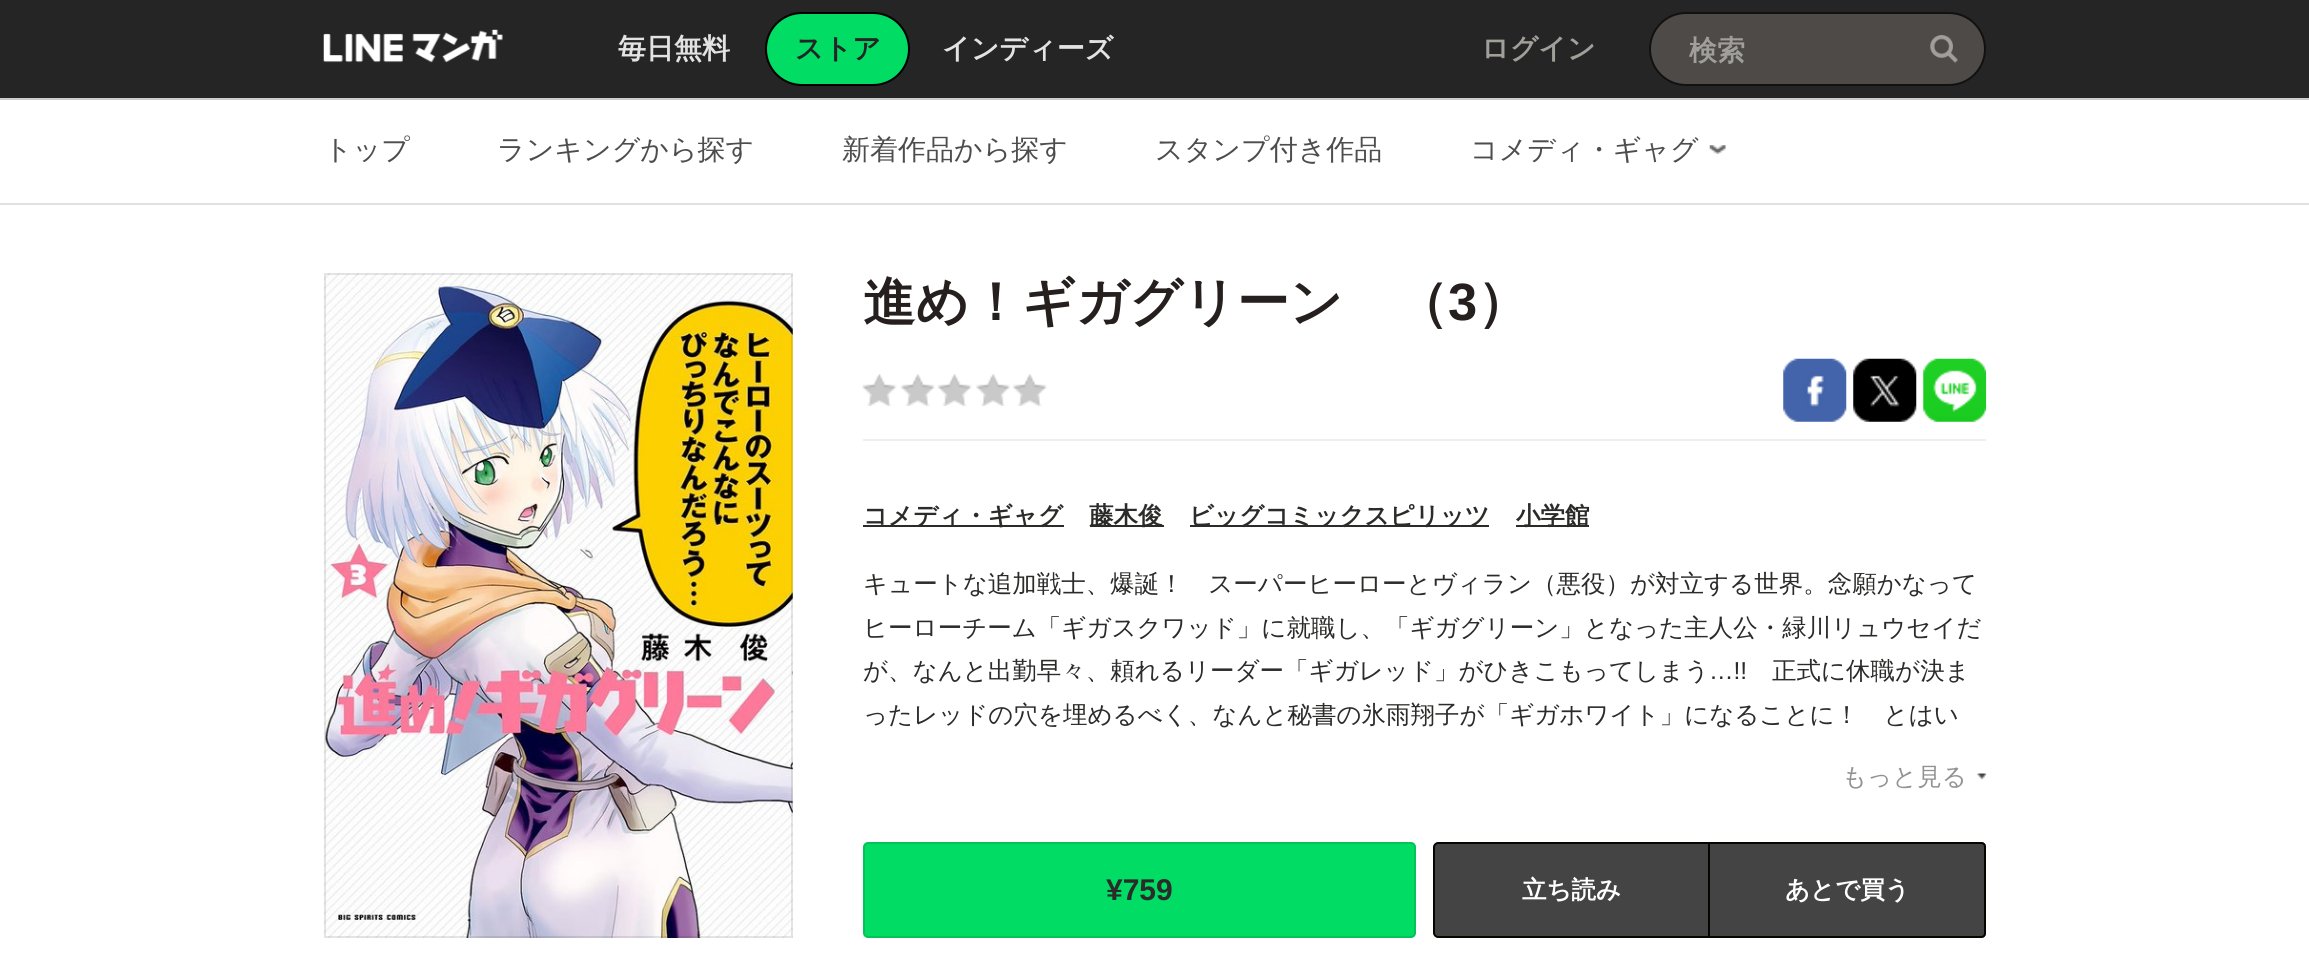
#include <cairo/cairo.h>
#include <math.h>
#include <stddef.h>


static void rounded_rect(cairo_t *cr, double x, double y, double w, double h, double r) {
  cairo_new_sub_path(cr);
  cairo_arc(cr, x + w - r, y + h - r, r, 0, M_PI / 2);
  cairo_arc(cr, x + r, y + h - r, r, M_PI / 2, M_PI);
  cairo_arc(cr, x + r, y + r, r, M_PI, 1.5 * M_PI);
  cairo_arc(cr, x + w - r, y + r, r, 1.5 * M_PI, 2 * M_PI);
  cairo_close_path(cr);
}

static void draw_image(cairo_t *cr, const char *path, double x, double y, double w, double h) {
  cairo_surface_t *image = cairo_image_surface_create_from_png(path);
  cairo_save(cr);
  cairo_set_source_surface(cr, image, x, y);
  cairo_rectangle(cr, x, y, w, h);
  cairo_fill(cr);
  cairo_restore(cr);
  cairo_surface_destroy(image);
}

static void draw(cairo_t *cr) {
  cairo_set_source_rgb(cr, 1, 1, 1);
  cairo_paint(cr);
  cairo_set_source_rgb(cr, 38 / 255.0, 37 / 255.0, 37 / 255.0);
  cairo_rectangle(cr, 0, 0, 2309, 98);
  cairo_fill(cr);
  draw_image(cr, "images/1.png", 323, 29, 180, 34);
  cairo_set_source_rgb(cr, 0, 220 / 255.0, 100 / 255.0);
  rounded_rect(cr, 766, 13, 143, 72, 36);
  cairo_fill_preserve(cr);
  cairo_set_source_rgb(cr, 0, 0, 0);
  cairo_stroke(cr);
  cairo_set_source_rgb(cr, 77 / 255.0, 74 / 255.0, 72 / 255.0);
  rounded_rect(cr, 1650, 13, 335, 72, 36);
  cairo_fill_preserve(cr);
  cairo_set_source_rgb(cr, 18 / 255.0, 17 / 255.0, 17 / 255.0);
  cairo_stroke(cr);
  draw_image(cr, "images/2.png", 1930, 35, 28, 28);
  cairo_set_source_rgb(cr, 204 / 255.0, 204 / 255.0, 204 / 255.0);
  cairo_rectangle(cr, 0, 98, 2309, 2);
  cairo_fill(cr);
  draw_image(cr, "images/3.png", 1709, 145, 17, 9);
  cairo_set_source_rgb(cr, 226 / 255.0, 225 / 255.0, 225 / 255.0);
  cairo_rectangle(cr, 0, 203, 2309, 2);
  cairo_fill(cr);
  draw_image(cr, "images/4.png", 323, 273, 470, 665);
  cairo_rectangle(cr, 325, 274, 467, 663);
  cairo_set_source_rgba(cr, 0, 0, 0, 0.1);
  cairo_stroke(cr);
  draw_image(cr, "images/5.png", 862, 374, 185, 32);
  draw_image(cr, "images/6.png", 1783, 358, 64, 64);
  draw_image(cr, "images/7.png", 1853, 358, 64, 64);
  draw_image(cr, "images/8.png", 1923, 358, 64, 64);
  cairo_set_source_rgb(cr, 240 / 255.0, 239 / 255.0, 237 / 255.0);
  cairo_rectangle(cr, 863, 439, 1123, 2);
  cairo_fill(cr);
  cairo_set_source_rgb(cr, 43 / 255.0, 43 / 255.0, 42 / 255.0);
  cairo_rectangle(cr, 863, 525, 201, 2);
  cairo_fill(cr);
  cairo_rectangle(cr, 1090, 525, 74, 2);
  cairo_fill(cr);
  cairo_rectangle(cr, 1190, 525, 299, 2);
  cairo_fill(cr);
  cairo_rectangle(cr, 1516, 525, 73, 2);
  cairo_fill(cr);
  draw_image(cr, "images/9.png", 1977, 773, 10, 7);
  cairo_set_source_rgb(cr, 0, 220 / 255.0, 100 / 255.0);
  rounded_rect(cr, 864, 843, 551, 94, 4);
  cairo_fill_preserve(cr);
  cairo_set_source_rgb(cr, 3 / 255.0, 195 / 255.0, 89 / 255.0);
  cairo_stroke(cr);
  cairo_set_source_rgb(cr, 68 / 255.0, 68 / 255.0, 68 / 255.0);
  cairo_new_path(cr);
  cairo_move_to(cr, 1438, 843);
  cairo_line_to(cr, 1709, 843);
  cairo_line_to(cr, 1709, 937);
  cairo_line_to(cr, 1438, 937);
  cairo_curve_to(cr, 1436, 937, 1434, 935, 1434, 933);
  cairo_line_to(cr, 1434, 847);
  cairo_curve_to(cr, 1434, 845, 1436, 843, 1438, 843);
  cairo_close_path(cr);
  cairo_fill_preserve(cr);
  cairo_set_source_rgb(cr, 5 / 255.0, 6 / 255.0, 0);
  cairo_stroke(cr);
  cairo_set_source_rgb(cr, 68 / 255.0, 68 / 255.0, 68 / 255.0);
  cairo_new_path(cr);
  cairo_move_to(cr, 1710, 842);
  cairo_line_to(cr, 1981, 842);
  cairo_curve_to(cr, 1984, 842, 1986, 844, 1986, 847);
  cairo_line_to(cr, 1986, 933);
  cairo_curve_to(cr, 1986, 936, 1984, 938, 1981, 938);
  cairo_line_to(cr, 1710, 938);
  cairo_close_path(cr);
  cairo_fill(cr);
  cairo_set_source_rgb(cr, 5 / 255.0, 6 / 255.0, 0);
  cairo_set_fill_rule(cr, CAIRO_FILL_RULE_EVEN_ODD);
  cairo_new_path(cr);
  cairo_move_to(cr, 1710, 842);
  cairo_line_to(cr, 1981, 842);
  cairo_curve_to(cr, 1984, 842, 1986, 844, 1986, 847);
  cairo_line_to(cr, 1986, 933);
  cairo_curve_to(cr, 1986, 936, 1984, 938, 1981, 938);
  cairo_line_to(cr, 1710, 938);
  cairo_close_path(cr);
  cairo_move_to(cr, 1710, 844);
  cairo_line_to(cr, 1981, 844);
  cairo_curve_to(cr, 1983, 844, 1984, 845, 1984, 847);
  cairo_line_to(cr, 1984, 933);
  cairo_curve_to(cr, 1984, 935, 1983, 936, 1981, 936);
  cairo_line_to(cr, 1710, 936);
  cairo_close_path(cr);
  cairo_fill(cr);
  cairo_select_font_face(cr, "WenQuanYi Zen Hei", CAIRO_FONT_SLANT_NORMAL, CAIRO_FONT_WEIGHT_BOLD);
  cairo_set_font_size(cr, 28);
  cairo_set_source_rgb(cr, 227 / 255.0, 227 / 255.0, 227 / 255.0);
  cairo_move_to(cr, 618, 58);
  cairo_show_text(cr, "毎日無料");
  cairo_set_source_rgb(cr, 38 / 255.0, 37 / 255.0, 37 / 255.0);
  cairo_move_to(cr, 795, 58);
  cairo_show_text(cr, "ストア");
  cairo_set_source_rgb(cr, 227 / 255.0, 227 / 255.0, 227 / 255.0);
  cairo_move_to(cr, 942, 58);
  cairo_show_text(cr, "インディーズ");
  cairo_set_source_rgb(cr, 161 / 255.0, 159 / 255.0, 154 / 255.0);
  cairo_move_to(cr, 1481, 58);
  cairo_show_text(cr, "ログイン");
  cairo_move_to(cr, 1689, 60);
  cairo_show_text(cr, "検索");
  cairo_select_font_face(cr, "WenQuanYi Zen Hei Medium", CAIRO_FONT_SLANT_NORMAL, CAIRO_FONT_WEIGHT_NORMAL);
  cairo_set_source_rgb(cr, 77 / 255.0, 77 / 255.0, 77 / 255.0);
  cairo_move_to(cr, 324, 159);
  cairo_show_text(cr, "トップ");
  cairo_move_to(cr, 497, 159);
  cairo_show_text(cr, "ランキングから探す");
  cairo_move_to(cr, 842, 159);
  cairo_show_text(cr, "新着作品から探す");
  cairo_move_to(cr, 1155, 159);
  cairo_show_text(cr, "スタンプ付き作品");
  cairo_move_to(cr, 1470, 159);
  cairo_show_text(cr, "コメディ・ギャグ");
  cairo_select_font_face(cr, "WenQuanYi Zen Hei", CAIRO_FONT_SLANT_NORMAL, CAIRO_FONT_WEIGHT_BOLD);
  cairo_set_font_size(cr, 52.5);
  cairo_set_source_rgb(cr, 37 / 255.0, 31 / 255.0, 30 / 255.0);
  cairo_move_to(cr, 863, 320);
  cairo_show_text(cr, "進め！ギガグリーン　（");
  cairo_select_font_face(cr, "Liberation Sans", CAIRO_FONT_SLANT_NORMAL, CAIRO_FONT_WEIGHT_BOLD);
  cairo_move_to(cr, 1448, 320);
  cairo_show_text(cr, "3");
  cairo_select_font_face(cr, "WenQuanYi Zen Hei", CAIRO_FONT_SLANT_NORMAL, CAIRO_FONT_WEIGHT_BOLD);
  cairo_move_to(cr, 1477, 320);
  cairo_show_text(cr, "）");
  cairo_set_font_size(cr, 24.5);
  cairo_set_source_rgb(cr, 43 / 255.0, 43 / 255.0, 42 / 255.0);
  cairo_move_to(cr, 863, 524);
  cairo_show_text(cr, "コメディ・ギャグ");
  cairo_move_to(cr, 1089, 524);
  cairo_show_text(cr, "藤木俊");
  cairo_move_to(cr, 1189, 524);
  cairo_show_text(cr, "ビッグコミックスピリッツ");
  cairo_move_to(cr, 1516, 524);
  cairo_show_text(cr, "小学館");
  cairo_select_font_face(cr, "WenQuanYi Zen Hei Medium", CAIRO_FONT_SLANT_NORMAL, CAIRO_FONT_WEIGHT_NORMAL);
  cairo_move_to(cr, 863, 592);
  cairo_show_text(cr, "キュートな追加戦士、爆誕！　スーパーヒーローとヴィラン（悪役）が対立する世界。念願かなって");
  cairo_move_to(cr, 863, 636);
  cairo_show_text(cr, "ヒーローチーム「ギガスクワッド」に就職し、「ギガグリーン」となった主人公・緑川リュウセイだ");
  cairo_move_to(cr, 863, 679);
  cairo_show_text(cr, "が、なんと出勤早々、頼れるリーダー「ギガレッド」がひきこもってしまう");
  cairo_select_font_face(cr, "Liberation Sans", CAIRO_FONT_SLANT_NORMAL, CAIRO_FONT_WEIGHT_NORMAL);
  cairo_move_to(cr, 1709, 679);
  cairo_show_text(cr, "…!!");
  cairo_select_font_face(cr, "WenQuanYi Zen Hei Medium", CAIRO_FONT_SLANT_NORMAL, CAIRO_FONT_WEIGHT_NORMAL);
  cairo_move_to(cr, 1772, 679);
  cairo_show_text(cr, "正式に休職が決ま");
  cairo_move_to(cr, 863, 723);
  cairo_show_text(cr, "ったレッドの穴を埋めるべく、なんと秘書の氷雨翔子が「ギガホワイト」になることに！　とはい");
  cairo_set_source_rgb(cr, 146 / 255.0, 146 / 255.0, 146 / 255.0);
  cairo_move_to(cr, 1842, 785);
  cairo_show_text(cr, "もっと見る");
  cairo_select_font_face(cr, "Liberation Sans", CAIRO_FONT_SLANT_NORMAL, CAIRO_FONT_WEIGHT_BOLD);
  cairo_set_font_size(cr, 30);
  cairo_set_source_rgb(cr, 43 / 255.0, 43 / 255.0, 42 / 255.0);
  cairo_move_to(cr, 1106, 900);
  cairo_show_text(cr, "¥759");
  cairo_select_font_face(cr, "WenQuanYi Zen Hei", CAIRO_FONT_SLANT_NORMAL, CAIRO_FONT_WEIGHT_BOLD);
  cairo_set_font_size(cr, 24.5);
  cairo_set_source_rgb(cr, 1, 1, 1);
  cairo_move_to(cr, 1522, 898);
  cairo_show_text(cr, "立ち読み");
  cairo_move_to(cr, 1785, 898);
  cairo_show_text(cr, "あとで買う");
}

int main(void) {
  cairo_surface_t *surface = cairo_image_surface_create(CAIRO_FORMAT_RGB24, 2309, 976);
  cairo_t *cr = cairo_create(surface);
  cairo_font_options_t *options = cairo_font_options_create();
  cairo_font_options_set_hint_metrics(options, CAIRO_HINT_METRICS_OFF);
  cairo_font_options_set_hint_style(options, CAIRO_HINT_STYLE_NONE);
  cairo_set_font_options(cr, options);
  cairo_set_miter_limit(cr, 4);
  draw(cr);
  cairo_surface_write_to_png(surface, "out.png");
  cairo_font_options_destroy(options);
  cairo_destroy(cr);
  cairo_surface_destroy(surface);
  return 0;
}
